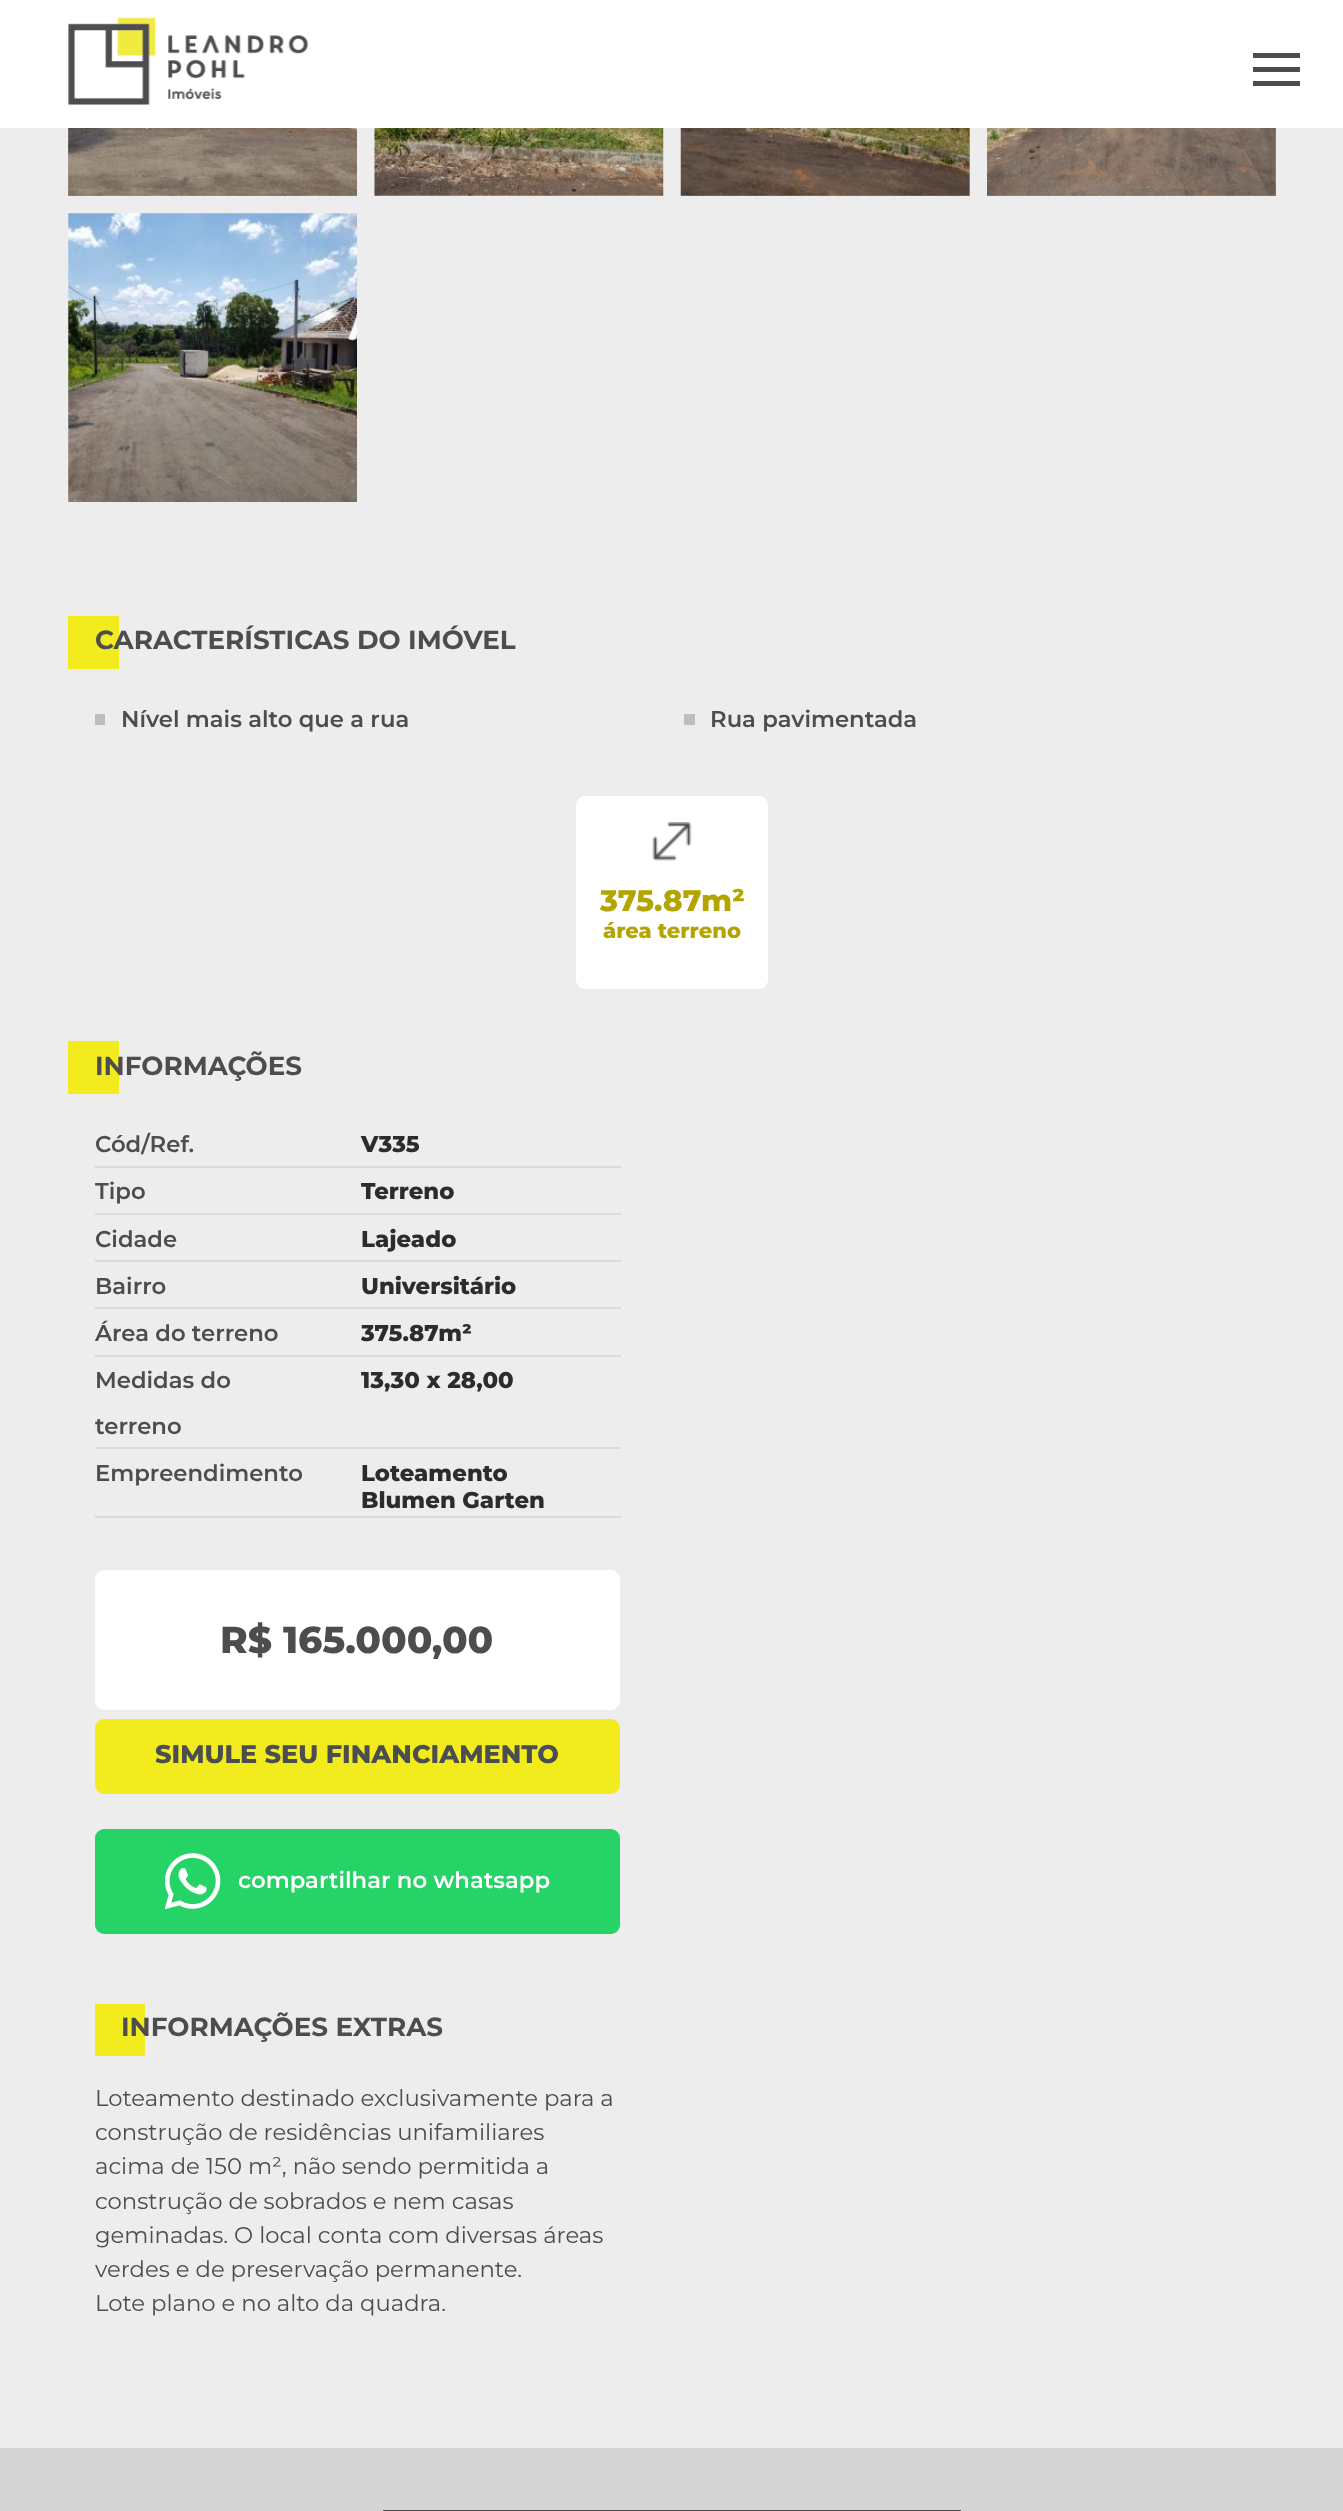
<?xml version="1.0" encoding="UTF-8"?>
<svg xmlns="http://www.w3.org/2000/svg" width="1343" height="2511">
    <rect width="100%" height="100%" fill="#EDEDED"/>
    <rect x="0" y="0" width="1343" height="128" fill="#FFFFFF"/>
    <image x="68" y="17" width="240" height="88" href="img_01.png"/>
    <rect x="1253" y="53" width="47" height="5" fill="#4C4D4F"/>
    <rect x="1253" y="67" width="47" height="5" fill="#4C4D4F"/>
    <rect x="1253" y="81" width="47" height="5" fill="#4C4D4F"/>
    <rect x="68" y="128" width="289" height="68" fill="#B2B2B2"/>
    <image x="68" y="128" width="289" height="68" href="img_02.png"/>
    <image x="374" y="128" width="290" height="68" href="img_03.png"/>
    <rect x="681" y="128" width="289" height="68" fill="#B2B2B2"/>
    <image x="680" y="128" width="290" height="68" href="img_04.png"/>
    <rect x="987" y="128" width="289" height="68" fill="#B2B2B2"/>
    <image x="987" y="128" width="289" height="68" href="img_05.png"/>
    <image x="68" y="213" width="289" height="289" href="img_06.png"/>
    <rect x="68" y="616" width="51" height="53" fill="#F2EC1F"/>
    <text x="95" y="649" font-family="Montserrat" font-size="26.2" font-weight="700" fill="#4C4D4F">CARACTERÍSTICAS DO IMÓVEL</text>
    <rect x="95" y="714" width="10" height="11" fill="#BEBEBE"/>
    <text x="121" y="727" font-family="Montserrat" font-size="22.75" font-weight="600" fill="#4C4D4F">Nível mais alto que a rua</text>
    <rect x="684" y="714" width="11" height="11" fill="#BEBEBE"/>
    <text x="710" y="727" font-family="Montserrat" font-size="22.75" font-weight="600" fill="#4C4D4F">Rua pavimentada</text>
    <rect x="576" y="796" width="192" height="193" rx="9" fill="#FFFFFF"/>
    <image x="652" y="822" width="40" height="39" href="img_07.png"/>
    <text x="600" y="911" font-family="Montserrat" font-size="29.75" font-weight="800" fill="#B3A400">375.87m²</text>
    <text x="603" y="938" font-family="Montserrat" font-size="21" font-weight="800" fill="#B3A400">área terreno</text>
    <rect x="68" y="1041" width="51" height="53" fill="#F2EC1F"/>
    <text x="95" y="1075" font-family="Montserrat" font-size="26.2" font-weight="700" fill="#4C4D4F">INFORMAÇÕES</text>
    <rect x="95" y="1166" width="526" height="2" fill="#DADADA"/>
    <text x="95" y="1152" font-family="Montserrat" font-size="22.75" font-weight="600" fill="#4C4D4F">Cód/Ref.</text>
    <text x="361" y="1152" font-family="Montserrat" font-size="22.75" font-weight="800" fill="#2B2C2D">V335</text>
    <rect x="95" y="1213" width="526" height="2" fill="#DADADA"/>
    <text x="95" y="1199" font-family="Montserrat" font-size="22.75" font-weight="600" fill="#4C4D4F">Tipo</text>
    <text x="361" y="1199" font-family="Montserrat" font-size="22.75" font-weight="800" fill="#2B2C2D">Terreno</text>
    <rect x="95" y="1260" width="526" height="2" fill="#DADADA"/>
    <text x="95" y="1247" font-family="Montserrat" font-size="22.75" font-weight="600" fill="#4C4D4F">Cidade</text>
    <text x="361" y="1247" font-family="Montserrat" font-size="22.75" font-weight="800" fill="#2B2C2D">Lajeado</text>
    <rect x="95" y="1307" width="526" height="2" fill="#DADADA"/>
    <text x="95" y="1294" font-family="Montserrat" font-size="22.75" font-weight="600" fill="#4C4D4F">Bairro</text>
    <text x="361" y="1294" font-family="Montserrat" font-size="22.75" font-weight="800" fill="#2B2C2D">Universitário</text>
    <rect x="95" y="1355" width="526" height="2" fill="#DADADA"/>
    <text x="95" y="1341" font-family="Montserrat" font-size="22.75" font-weight="600" fill="#4C4D4F">Área do terreno</text>
    <text x="361" y="1341" font-family="Montserrat" font-size="22.75" font-weight="800" fill="#2B2C2D">375.87m²</text>
    <rect x="95" y="1447" width="526" height="2" fill="#DADADA"/>
    <text x="95" y="1388" font-family="Montserrat" font-size="22.75" font-weight="600" fill="#4C4D4F">Medidas do</text>
    <text x="95" y="1434" font-family="Montserrat" font-size="22.75" font-weight="600" fill="#4C4D4F">terreno</text>
    <text x="361" y="1388" font-family="Montserrat" font-size="22.75" font-weight="800" fill="#2B2C2D">13,30 x 28,00</text>
    <rect x="95" y="1516" width="526" height="2" fill="#DADADA"/>
    <text x="95" y="1481" font-family="Montserrat" font-size="22.75" font-weight="600" fill="#4C4D4F">Empreendimento</text>
    <text font-family="Montserrat" font-size="22.75" font-weight="800" fill="#2B2C2D">
        <tspan x="361" y="1481">Loteamento</tspan>
        <tspan x="361" y="1508">Blumen Garten</tspan>
    </text>
    <rect x="95" y="1570" width="525" height="140" rx="9" fill="#FFFFFF"/>
    <text x="220" y="1653" font-family="Montserrat" font-size="37.5" font-weight="800" fill="#4C4D4F">R$ 165.000,00</text>
    <rect x="95" y="1719" width="525" height="75" rx="9" fill="#F2EC1F"/>
    <text x="155" y="1763" font-family="Montserrat" font-size="25.5" font-weight="800" fill="#4C4D4F">SIMULE SEU FINANCIAMENTO</text>
    <rect x="95" y="1829" width="525" height="105" rx="9" fill="#25D366"/>
    <image x="165" y="1853" width="56" height="56" href="img_08.png"/>
    <text x="238" y="1888" font-family="Montserrat" font-size="22.75" font-weight="600" fill="#FFFFFF">compartilhar no whatsapp</text>
    <rect x="95" y="2004" width="50" height="52" fill="#F2EC1F"/>
    <text x="121" y="2036" font-family="Montserrat" font-size="26.2" font-weight="700" fill="#4C4D4F">INFORMAÇÕES EXTRAS</text>
    <text font-family="Montserrat" font-size="22.75" fill="#4C4D4F">
        <tspan x="95" y="2106">Loteamento destinado exclusivamente para a</tspan>
        <tspan x="95" y="2140">construção de residências unifamiliares</tspan>
        <tspan x="95" y="2174">acima de 150 m², não sendo permitida a</tspan>
        <tspan x="95" y="2209">construção de sobrados e nem casas</tspan>
        <tspan x="95" y="2243">geminadas. O local conta com diversas áreas</tspan>
        <tspan x="95" y="2277">verdes e de preservação permanente.</tspan>
        <tspan x="95" y="2311">Lote plano e no alto da quadra.</tspan>
    </text>
    <rect x="0" y="2448" width="1343" height="63" fill="#D5D5D5"/>
    <rect x="383" y="2510" width="578" height="1" fill="#4C4D4F"/>
</svg>
